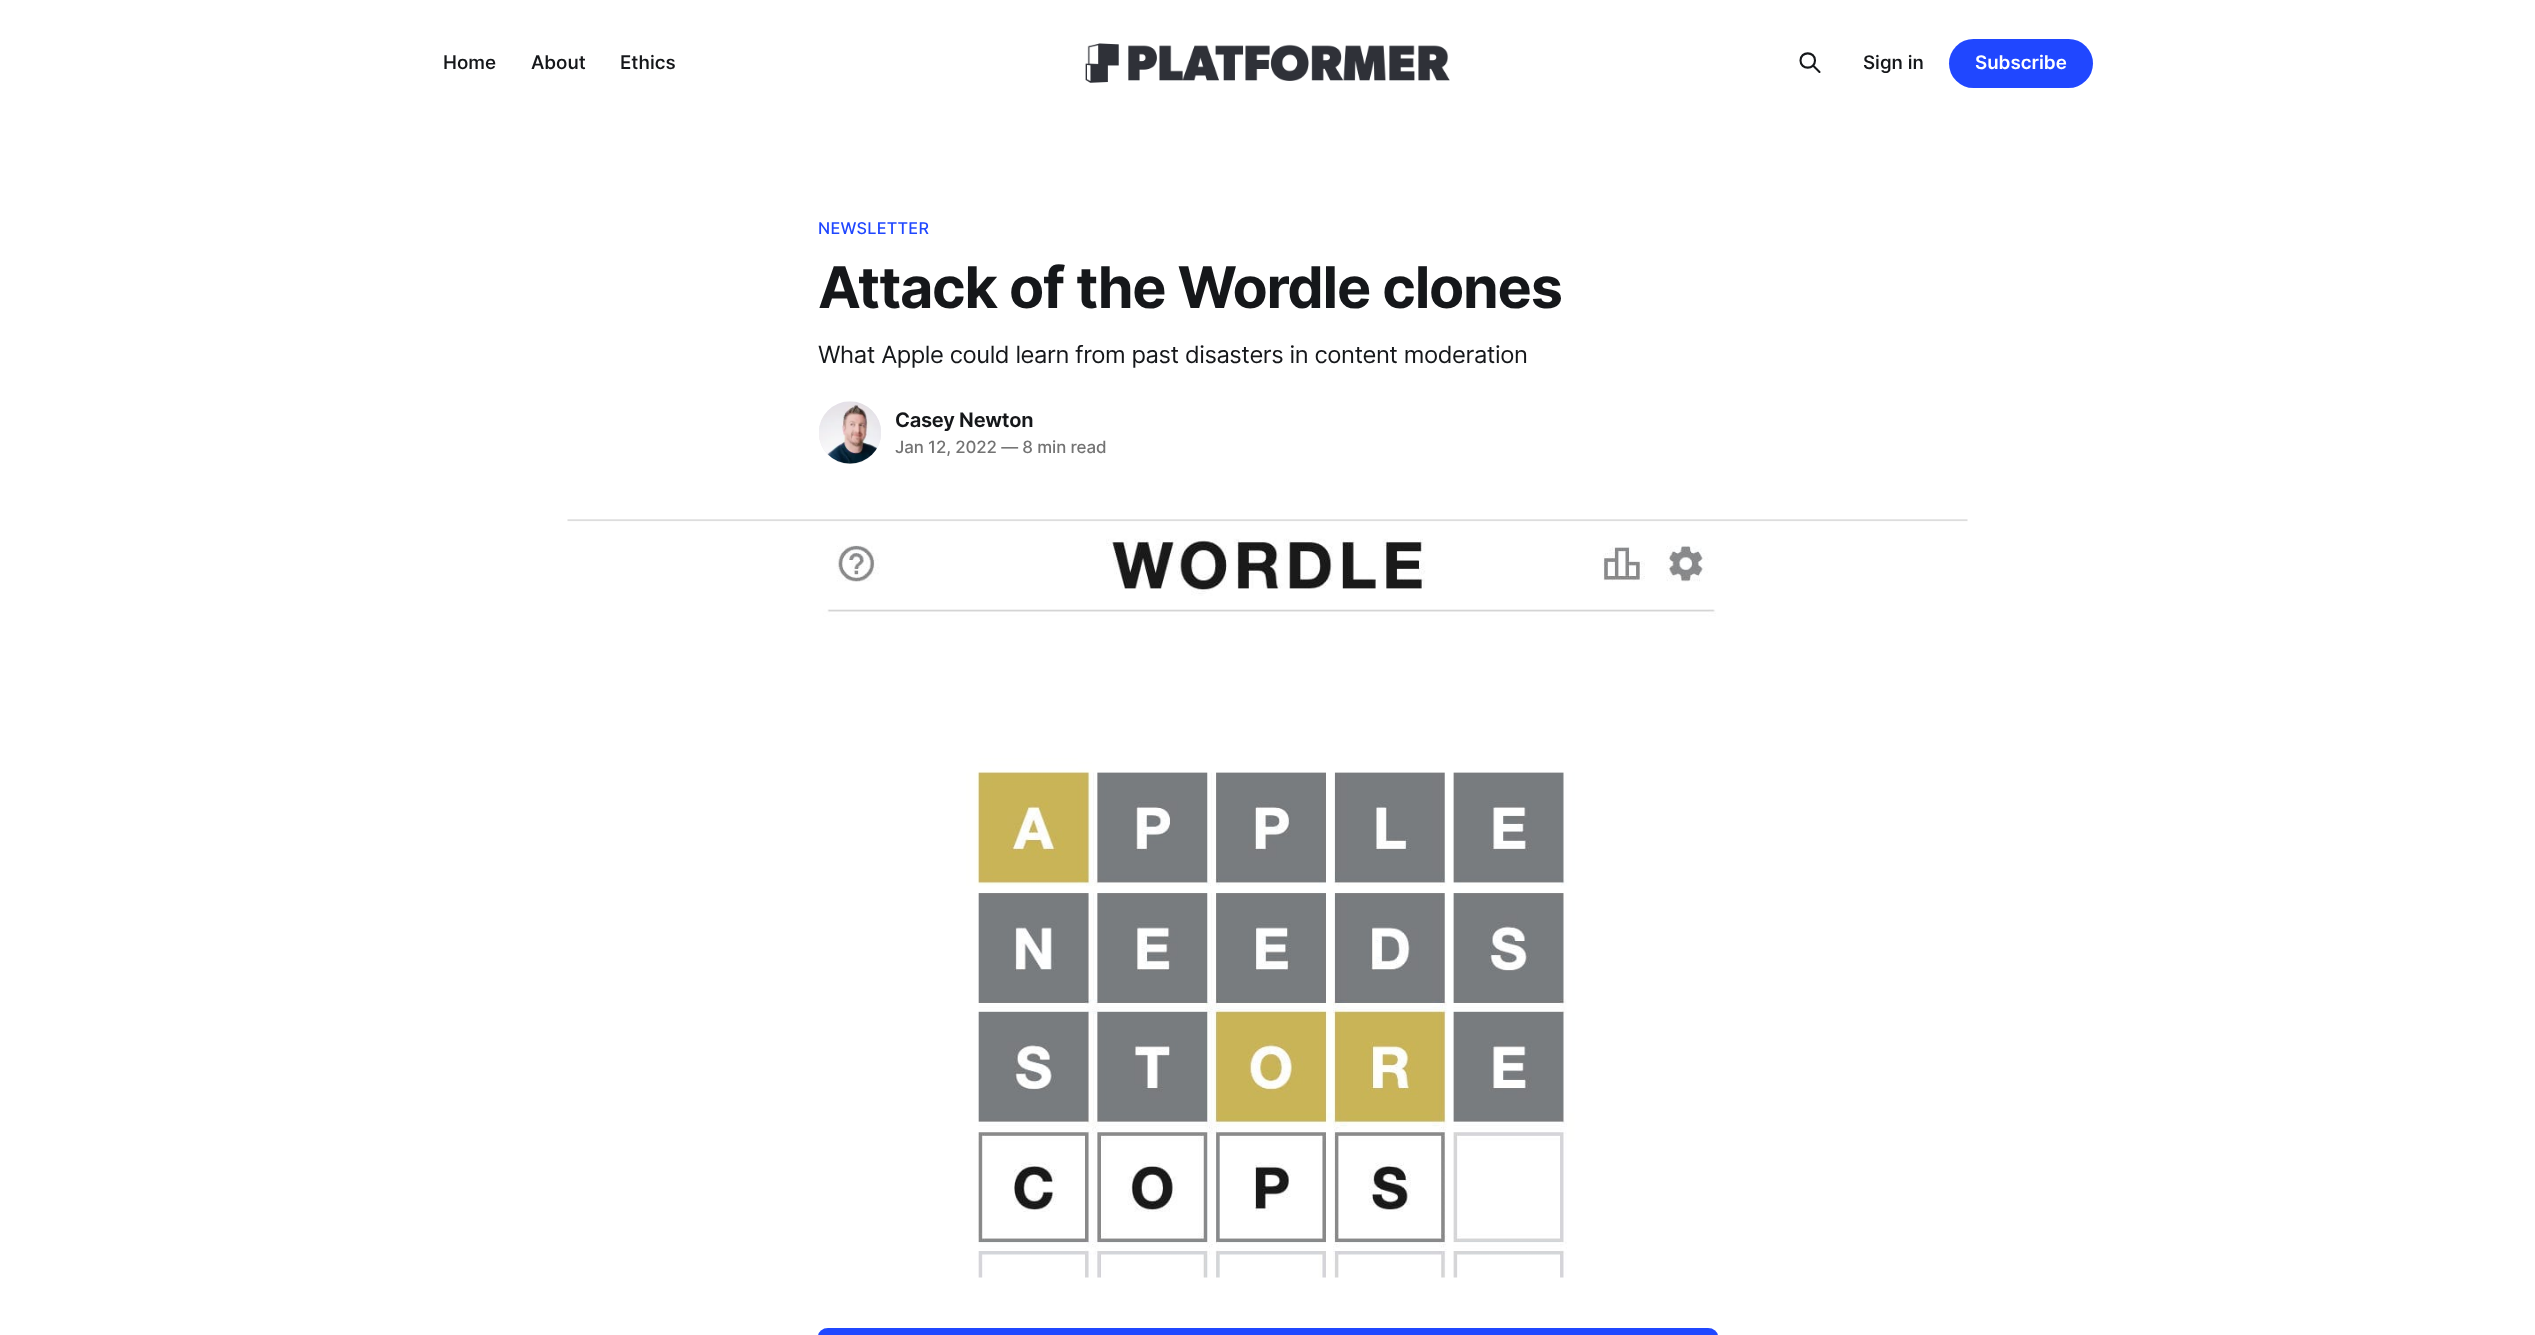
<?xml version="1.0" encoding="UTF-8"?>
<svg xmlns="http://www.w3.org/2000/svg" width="2535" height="1335">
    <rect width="100%" height="100%" fill="#FFFFFF"/>
    <text x="443" y="69" font-family="Inter" font-size="18.75" font-weight="500" fill="#15171A">Home</text>
    <text x="531" y="69" font-family="Inter" font-size="18.75" font-weight="500" fill="#15171A">About</text>
    <text x="620" y="69" font-family="Inter" font-size="18.75" font-weight="500" fill="#15171A">Ethics</text>
    <image x="1085" y="43" width="365" height="40" href="img_01.png"/>
    <path d="M 1819.5 72 L 1813 65.5 M 1815 60.5 C 1815 70 1800.5 70 1800.5 60.5 C 1800.5 51 1815 51 1815 60.5 Z" fill="none" stroke="#15171A" stroke-width="2.1" stroke-linecap="round" stroke-linejoin="round"/>
    <text x="1863" y="69" font-family="Inter" font-size="18.75" font-weight="500" fill="#15171A">Sign in</text>
    <rect x="1949" y="39" width="144" height="49" rx="24.5" fill="#2047FF"/>
    <text x="1975" y="69" font-family="Inter" font-size="18.75" font-weight="600" fill="#FFFFFF">Subscribe</text>
    <text x="818" y="234" font-family="'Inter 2'" font-size="16.25" font-weight="500" letter-spacing="0.25" fill="#2047FF">NEWSLETTER</text>
    <text x="818" y="308" font-family="Inter" font-size="57.5" font-weight="700" letter-spacing="-1.25" fill="#15171A">Attack of the Wordle clones</text>
    <text x="818" y="363" font-family="Inter" font-size="23.75" letter-spacing="-0.43" fill="#15171A">What Apple could learn from past disasters in content moderation</text>
    <circle cx="850" cy="433" r="33" fill="#E6E6E6" stroke="#FFFFFF" stroke-width="4"/>
    <image x="819" y="401" width="62" height="63" href="img_02.png"/>
    <text x="895" y="427" font-family="'Inter 2'" font-size="20" font-weight="600" letter-spacing="-0.25" fill="#15171A">Casey Newton</text>
    <text x="895" y="453" font-family="'Inter 2'" font-size="16.9" font-weight="500" letter-spacing="-0.1" fill="#737373">Jan 12, 2022 — 8 min read</text>
    <image x="567" y="519" width="1401" height="759" href="img_03.png"/>
    <rect x="818" y="1328" width="900" height="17" rx="10" fill="#2047FF"/>
</svg>
